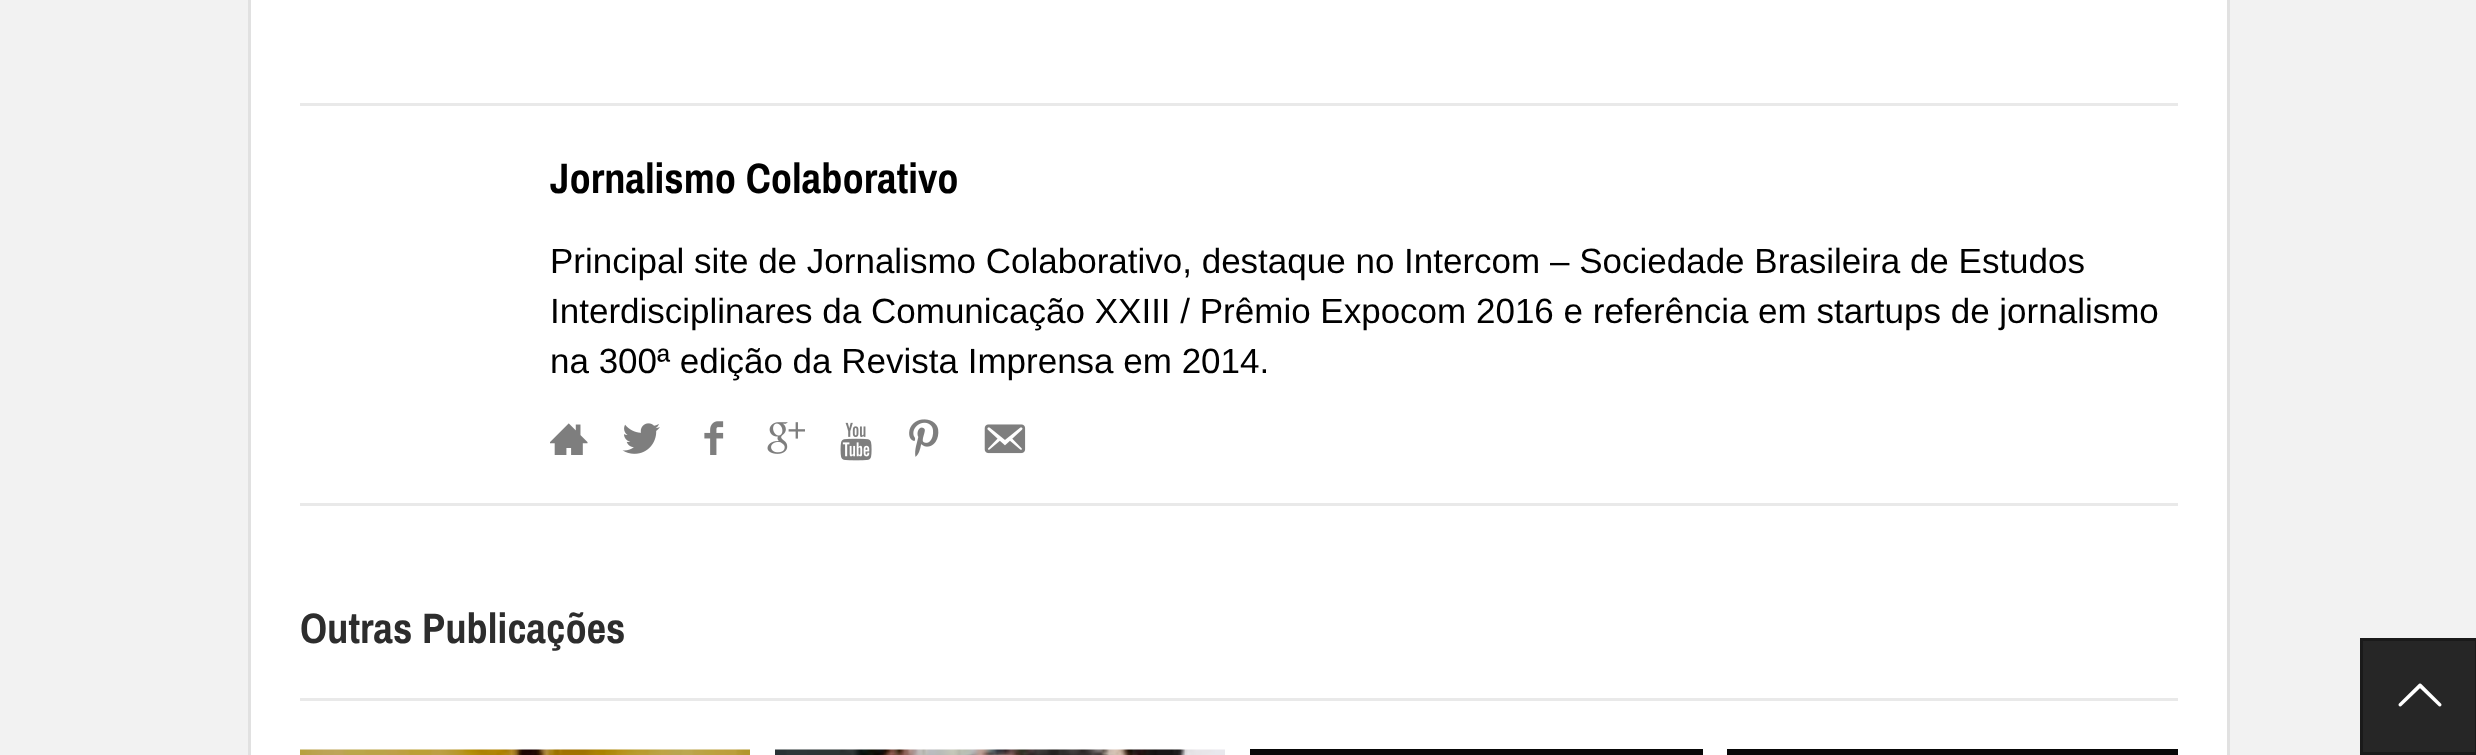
<?xml version="1.0" encoding="UTF-8"?>
<svg xmlns="http://www.w3.org/2000/svg" width="2476" height="755">
    <rect width="100%" height="100%" fill="#F2F2F2"/>
    <rect x="249.5" y="-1.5" width="1979" height="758" fill="#FFFFFF" stroke="#E1E1E1" stroke-width="3"/>
    <rect x="300" y="103" width="1878" height="3" fill="#E9E9E9"/>
    <rect x="300" y="503" width="1878" height="3" fill="#E9E9E9"/>
    <text x="550" y="193" font-family="Archivo Narrow" font-size="42.5" font-weight="700" fill="#000000">Jornalismo Colaborativo</text>
    <text font-family="Liberation Sans" font-size="35" fill="#000000">
        <tspan x="550" y="273">Principal site de Jornalismo Colaborativo, destaque no Intercom – Sociedade Brasileira de Estudos</tspan>
        <tspan x="550" y="323">Interdisciplinares da Comunicação XXIII / Prêmio Expocom 2016 e referência em startups de jornalismo</tspan>
        <tspan x="550" y="373">na 300ª edição da Revista Imprensa em 2014.</tspan>
    </text>
    <image x="550" y="423" width="38" height="32" href="img_01.png"/>
    <image x="622" y="423" width="38" height="31" href="img_02.png"/>
    <image x="704" y="421" width="20" height="34" href="img_03.png"/>
    <image x="767" y="422" width="38" height="32" href="img_04.png"/>
    <image x="840" y="422" width="32" height="39" href="img_05.png"/>
    <image x="909" y="419" width="30" height="38" href="img_06.png"/>
    <image x="984" y="424" width="42" height="30" href="img_07.png"/>
    <rect x="300" y="698" width="1878" height="3" fill="#E9E9E9"/>
    <text x="300" y="643" font-family="Archivo Narrow" font-size="42.5" font-weight="700" fill="#2D2D2D">Outras Publicações</text>
    <image x="300" y="749" width="450" height="6" href="img_08.png"/>
    <image x="775" y="749" width="450" height="6" href="img_09.png"/>
    <rect x="1250" y="749" width="453" height="6" fill="#080808"/>
    <rect x="1727" y="749" width="451" height="6" fill="#080808"/>
    <rect x="2361.5" y="639.5" width="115" height="114" fill="#262626" stroke="#1A1A1A" stroke-width="3"/>
    <image x="2398" y="683" width="44" height="24" href="img_10.png"/>
</svg>
